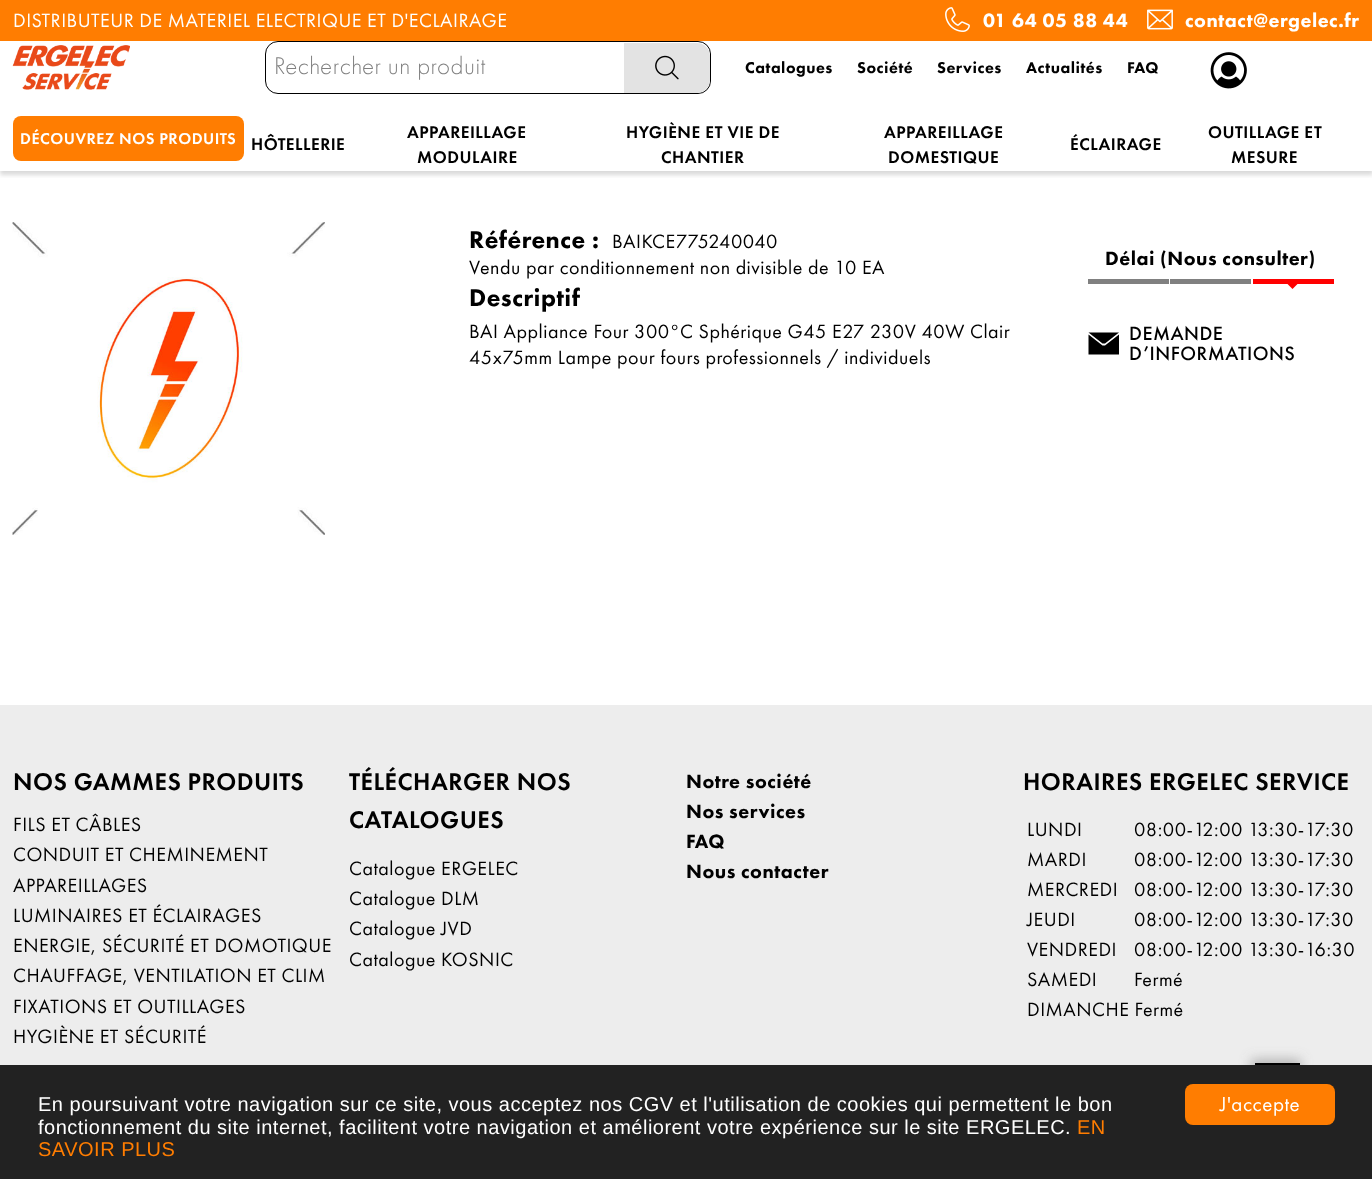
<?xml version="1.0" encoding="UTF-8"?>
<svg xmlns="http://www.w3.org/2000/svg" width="1372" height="1179">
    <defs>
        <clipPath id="clip1"><rect x="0" y="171" width="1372" height="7"/></clipPath>
        <filter id="blur1" x="-50%" y="-200%" width="200%" height="500%"><feGaussianBlur stdDeviation="2"/></filter>
        <filter id="blur2" x="-50%" y="-200%" width="200%" height="500%"><feGaussianBlur stdDeviation="6"/></filter>
    </defs>
    <rect width="100%" height="100%" fill="#FFFFFF"/>
    <rect x="0" y="0" width="1372" height="41" fill="#FF7D01"/>
    <text x="13" y="27" font-family="Futura PT" font-size="20" letter-spacing="0.5" fill="#FFFFFF">DISTRIBUTEUR DE MATERIEL ELECTRIQUE ET D'ECLAIRAGE</text>
    <image x="945" y="7" width="25" height="25" href="img_01.png"/>
    <text x="983" y="27" font-family="Futura PT" font-size="20" font-weight="900" letter-spacing="0.5" fill="#FFFFFF">01 64 05 88 44</text>
    <image x="1147" y="9" width="26" height="21" href="img_02.png"/>
    <text x="1185" y="27" font-family="Futura PT" font-size="20" font-weight="900" letter-spacing="0.5" fill="#FFFFFF">contact@ergelec.fr</text>
    <image x="12" y="45" width="118" height="45" href="img_03.png"/>
    <rect x="265.5" y="41.5" width="445" height="52" rx="12.5" fill="none" stroke="#000000"/>
    <text x="274" y="74" font-family="Futura PT" font-size="25" font-weight="300" letter-spacing="0.5" fill="#808080">Rechercher un produit</text>
    <path d="M 624 43 H 697 C 704 43 710 49 710 56 V 80 C 710 87 704 93 697 93 H 624 Z" fill="#E3E3E3"/>
    <image x="655" y="55" width="24" height="25" href="img_04.png"/>
    <text x="745" y="73" font-family="Futura PT" font-size="16.25" font-weight="900" letter-spacing="0.5" fill="#000000">Catalogues</text>
    <text x="857" y="73" font-family="Futura PT" font-size="16.25" font-weight="900" letter-spacing="0.5" fill="#000000">Société</text>
    <text x="937" y="73" font-family="Futura PT" font-size="16.25" font-weight="900" letter-spacing="0.5" fill="#000000">Services</text>
    <text x="1026" y="73" font-family="Futura PT" font-size="16.25" font-weight="900" letter-spacing="0.5" fill="#000000">Actualités</text>
    <text x="1127" y="73" font-family="Futura PT" font-size="16.25" font-weight="900" letter-spacing="0.5" fill="#000000">FAQ</text>
    <image x="1210" y="52" width="37" height="37" href="img_05.png"/>
    <g clip-path="url(#clip1)">
        <rect x="0" y="120" width="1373" height="55" fill="#B6B6B6" fill-opacity="0.5" filter="url(#blur1)"/>
    </g>
    <rect x="13" y="116" width="231" height="45" rx="8" fill="#FF7D01"/>
    <text x="20" y="144" font-family="Futura PT" font-size="16.25" font-weight="500" letter-spacing="0.5" fill="#FFFFFF">DÉCOUVREZ NOS PRODUITS</text>
    <text x="251" y="150" font-family="Futura PT" font-size="17.5" font-weight="500" letter-spacing="0.5" fill="#000000">HÔTELLERIE</text>
    <text x="407" y="138" font-family="Futura PT" font-size="17.5" font-weight="500" letter-spacing="0.5" fill="#000000">APPAREILLAGE</text>
    <text x="417" y="163" font-family="Futura PT" font-size="17.5" font-weight="500" letter-spacing="0.5" fill="#000000">MODULAIRE</text>
    <text x="626" y="138" font-family="Futura PT" font-size="17.5" font-weight="500" letter-spacing="0.5" fill="#000000">HYGIÈNE ET VIE DE</text>
    <text x="661" y="163" font-family="Futura PT" font-size="17.5" font-weight="500" letter-spacing="0.5" fill="#000000">CHANTIER</text>
    <text x="884" y="138" font-family="Futura PT" font-size="17.5" font-weight="500" letter-spacing="0.5" fill="#000000">APPAREILLAGE</text>
    <text x="888" y="163" font-family="Futura PT" font-size="17.5" font-weight="500" letter-spacing="0.5" fill="#000000">DOMESTIQUE</text>
    <text x="1070" y="150" font-family="Futura PT" font-size="17.5" font-weight="500" letter-spacing="0.5" fill="#000000">ÉCLAIRAGE</text>
    <text x="1208" y="138" font-family="Futura PT" font-size="17.5" font-weight="500" letter-spacing="0.5" fill="#000000">OUTILLAGE ET</text>
    <text x="1231" y="163" font-family="Futura PT" font-size="17.5" font-weight="500" letter-spacing="0.5" fill="#000000">MESURE</text>
    <image x="12" y="222" width="313" height="313" href="img_06.png"/>
    <text x="469" y="248" font-family="Futura PT" font-size="25" font-weight="900" letter-spacing="0.5" fill="#000000">Référence :</text>
    <text x="612" y="248" font-family="Futura PT" font-size="20" letter-spacing="0.5" fill="#000000">BAIKCE775240040</text>
    <text x="469" y="274" font-family="Futura PT" font-size="20" letter-spacing="0.5" fill="#000000">Vendu par conditionnement non divisible de 10 EA</text>
    <text x="469" y="306" font-family="Futura PT" font-size="25" font-weight="900" letter-spacing="0.5" fill="#000000">Descriptif</text>
    <text font-family="Futura PT" font-size="20" letter-spacing="0.5" fill="#000000">
        <tspan x="469" y="338">BAI Appliance Four 300°C Sphérique G45 E27 230V 40W Clair</tspan>
        <tspan x="469" y="364">45x75mm Lampe pour fours professionnels / individuels</tspan>
    </text>
    <text x="1105" y="265" font-family="Futura PT" font-size="20" font-weight="900" letter-spacing="0.5" fill="#000000">Délai (Nous consulter)</text>
    <rect x="1088" y="279" width="81" height="5" fill="#808080"/>
    <rect x="1170" y="279" width="81" height="5" fill="#808080"/>
    <rect x="1253" y="279" width="81" height="5" fill="#FF0000"/>
    <path d="M 1287.5 284 H 1297.5 L 1292.5 289 Z" fill="#FF0000"/>
    <path d="M 1102.5 343.5 L 1088.5 332.5 H 1119 L 1105 343.5 Z M 1088.5 354.5 V 334.5 L 1102.5 345.5 H 1105 L 1119 334.5 V 354.5 Z" fill="#000000"/>
    <text font-family="'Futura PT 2'" font-size="20" font-weight="500" letter-spacing="0.5" fill="#000000">
        <tspan x="1129" y="340">DEMANDE</tspan>
        <tspan x="1129" y="360">D’INFORMATIONS</tspan>
    </text>
    <rect x="0" y="705" width="1372" height="360" fill="#EDEDED"/>
    <text x="13" y="790" font-family="Futura PT" font-size="25" font-weight="500" letter-spacing="0.5" fill="#000000">NOS GAMMES PRODUITS</text>
    <text font-family="Futura PT" font-size="20" letter-spacing="0.5" fill="#000000">
        <tspan x="13" y="831">FILS ET CÂBLES</tspan>
        <tspan x="13" y="861">CONDUIT ET CHEMINEMENT</tspan>
        <tspan x="13" y="892">APPAREILLAGES</tspan>
        <tspan x="13" y="922">LUMINAIRES ET ÉCLAIRAGES</tspan>
        <tspan x="13" y="952">ENERGIE, SÉCURITÉ ET DOMOTIQUE</tspan>
        <tspan x="13" y="982">CHAUFFAGE, VENTILATION ET CLIM</tspan>
        <tspan x="13" y="1013">FIXATIONS ET OUTILLAGES</tspan>
        <tspan x="13" y="1043">HYGIÈNE ET SÉCURITÉ</tspan>
    </text>
    <text font-family="Futura PT" font-size="25" font-weight="500" letter-spacing="0.5" fill="#000000">
        <tspan x="349" y="790">TÉLÉCHARGER NOS</tspan>
        <tspan x="349" y="828">CATALOGUES</tspan>
    </text>
    <text font-family="Futura PT" font-size="20" letter-spacing="0.5" fill="#000000">
        <tspan x="349" y="875">Catalogue ERGELEC</tspan>
        <tspan x="349" y="905">Catalogue DLM</tspan>
        <tspan x="349" y="935">Catalogue JVD</tspan>
        <tspan x="349" y="966">Catalogue KOSNIC</tspan>
    </text>
    <text font-family="Futura PT" font-size="20" font-weight="900" letter-spacing="0.5" fill="#000000">
        <tspan x="686" y="788">Notre société</tspan>
        <tspan x="686" y="818">Nos services</tspan>
        <tspan x="686" y="848">FAQ</tspan>
        <tspan x="686" y="878">Nous contacter</tspan>
    </text>
    <text x="1023" y="790" font-family="Futura PT" font-size="25" font-weight="500" letter-spacing="0.5" fill="#000000">HORAIRES ERGELEC SERVICE</text>
    <text x="1027" y="836" font-family="Futura PT" font-size="20" letter-spacing="0.5" fill="#000000">LUNDI</text>
    <text x="1134" y="836" font-family="Futura PT" font-size="20" letter-spacing="0.5" fill="#000000">08:00-12:00 13:30-17:30</text>
    <text x="1027" y="866" font-family="Futura PT" font-size="20" letter-spacing="0.5" fill="#000000">MARDI</text>
    <text x="1134" y="866" font-family="Futura PT" font-size="20" letter-spacing="0.5" fill="#000000">08:00-12:00 13:30-17:30</text>
    <text x="1027" y="896" font-family="Futura PT" font-size="20" letter-spacing="0.5" fill="#000000">MERCREDI</text>
    <text x="1134" y="896" font-family="Futura PT" font-size="20" letter-spacing="0.5" fill="#000000">08:00-12:00 13:30-17:30</text>
    <text x="1027" y="926" font-family="Futura PT" font-size="20" letter-spacing="0.5" fill="#000000">JEUDI</text>
    <text x="1134" y="926" font-family="Futura PT" font-size="20" letter-spacing="0.5" fill="#000000">08:00-12:00 13:30-17:30</text>
    <text x="1027" y="956" font-family="Futura PT" font-size="20" letter-spacing="0.5" fill="#000000">VENDREDI</text>
    <text x="1134" y="956" font-family="Futura PT" font-size="20" letter-spacing="0.5" fill="#000000">08:00-12:00 13:30-16:30</text>
    <text x="1027" y="986" font-family="Futura PT" font-size="20" letter-spacing="0.5" fill="#000000">SAMEDI</text>
    <text x="1134" y="986" font-family="Futura PT" font-size="20" letter-spacing="0.5" fill="#000000">Fermé</text>
    <text x="1027" y="1016" font-family="Futura PT" font-size="20" letter-spacing="0.5" fill="#000000">DIMANCHE Fermé</text>
    <rect x="1251" y="1059" width="50" height="50" fill="#7F7F7F" fill-opacity="0.5" filter="url(#blur2)"/>
    <path d="M 1275 1082 V 1099 H 1280 V 1082 H 1287 L 1278 1071 L 1268 1082 Z M 1255 1063 H 1300 V 1108 H 1255 Z" fill="#000000"/>
    <rect x="0" y="1065" width="1372" height="114" fill="#222222"/>
    <text font-family="Liberation Sans" font-size="20" letter-spacing="0.5" fill="#FFFFFF">
        <tspan x="38" y="1111">En poursuivant votre navigation sur ce site, vous acceptez nos CGV et l'utilisation de cookies qui permettent le bon</tspan>
        <tspan x="38" y="1134">fonctionnement du site internet, facilitent votre navigation et améliorent votre expérience sur le site ERGELEC.</tspan>
    </text>
    <text x="1077" y="1134" font-family="Liberation Sans" font-size="20" letter-spacing="0.5" fill="#FF7D01">EN</text>
    <text x="38" y="1156" font-family="Liberation Sans" font-size="20" letter-spacing="0.5" fill="#FF7D01">SAVOIR PLUS</text>
    <rect x="1185" y="1084" width="150" height="41" rx="8" fill="#FF7D01"/>
    <text x="1220" y="1111" font-family="Futura PT" font-size="21" letter-spacing="0.5" fill="#FFFFFF">J'accepte</text>
</svg>
